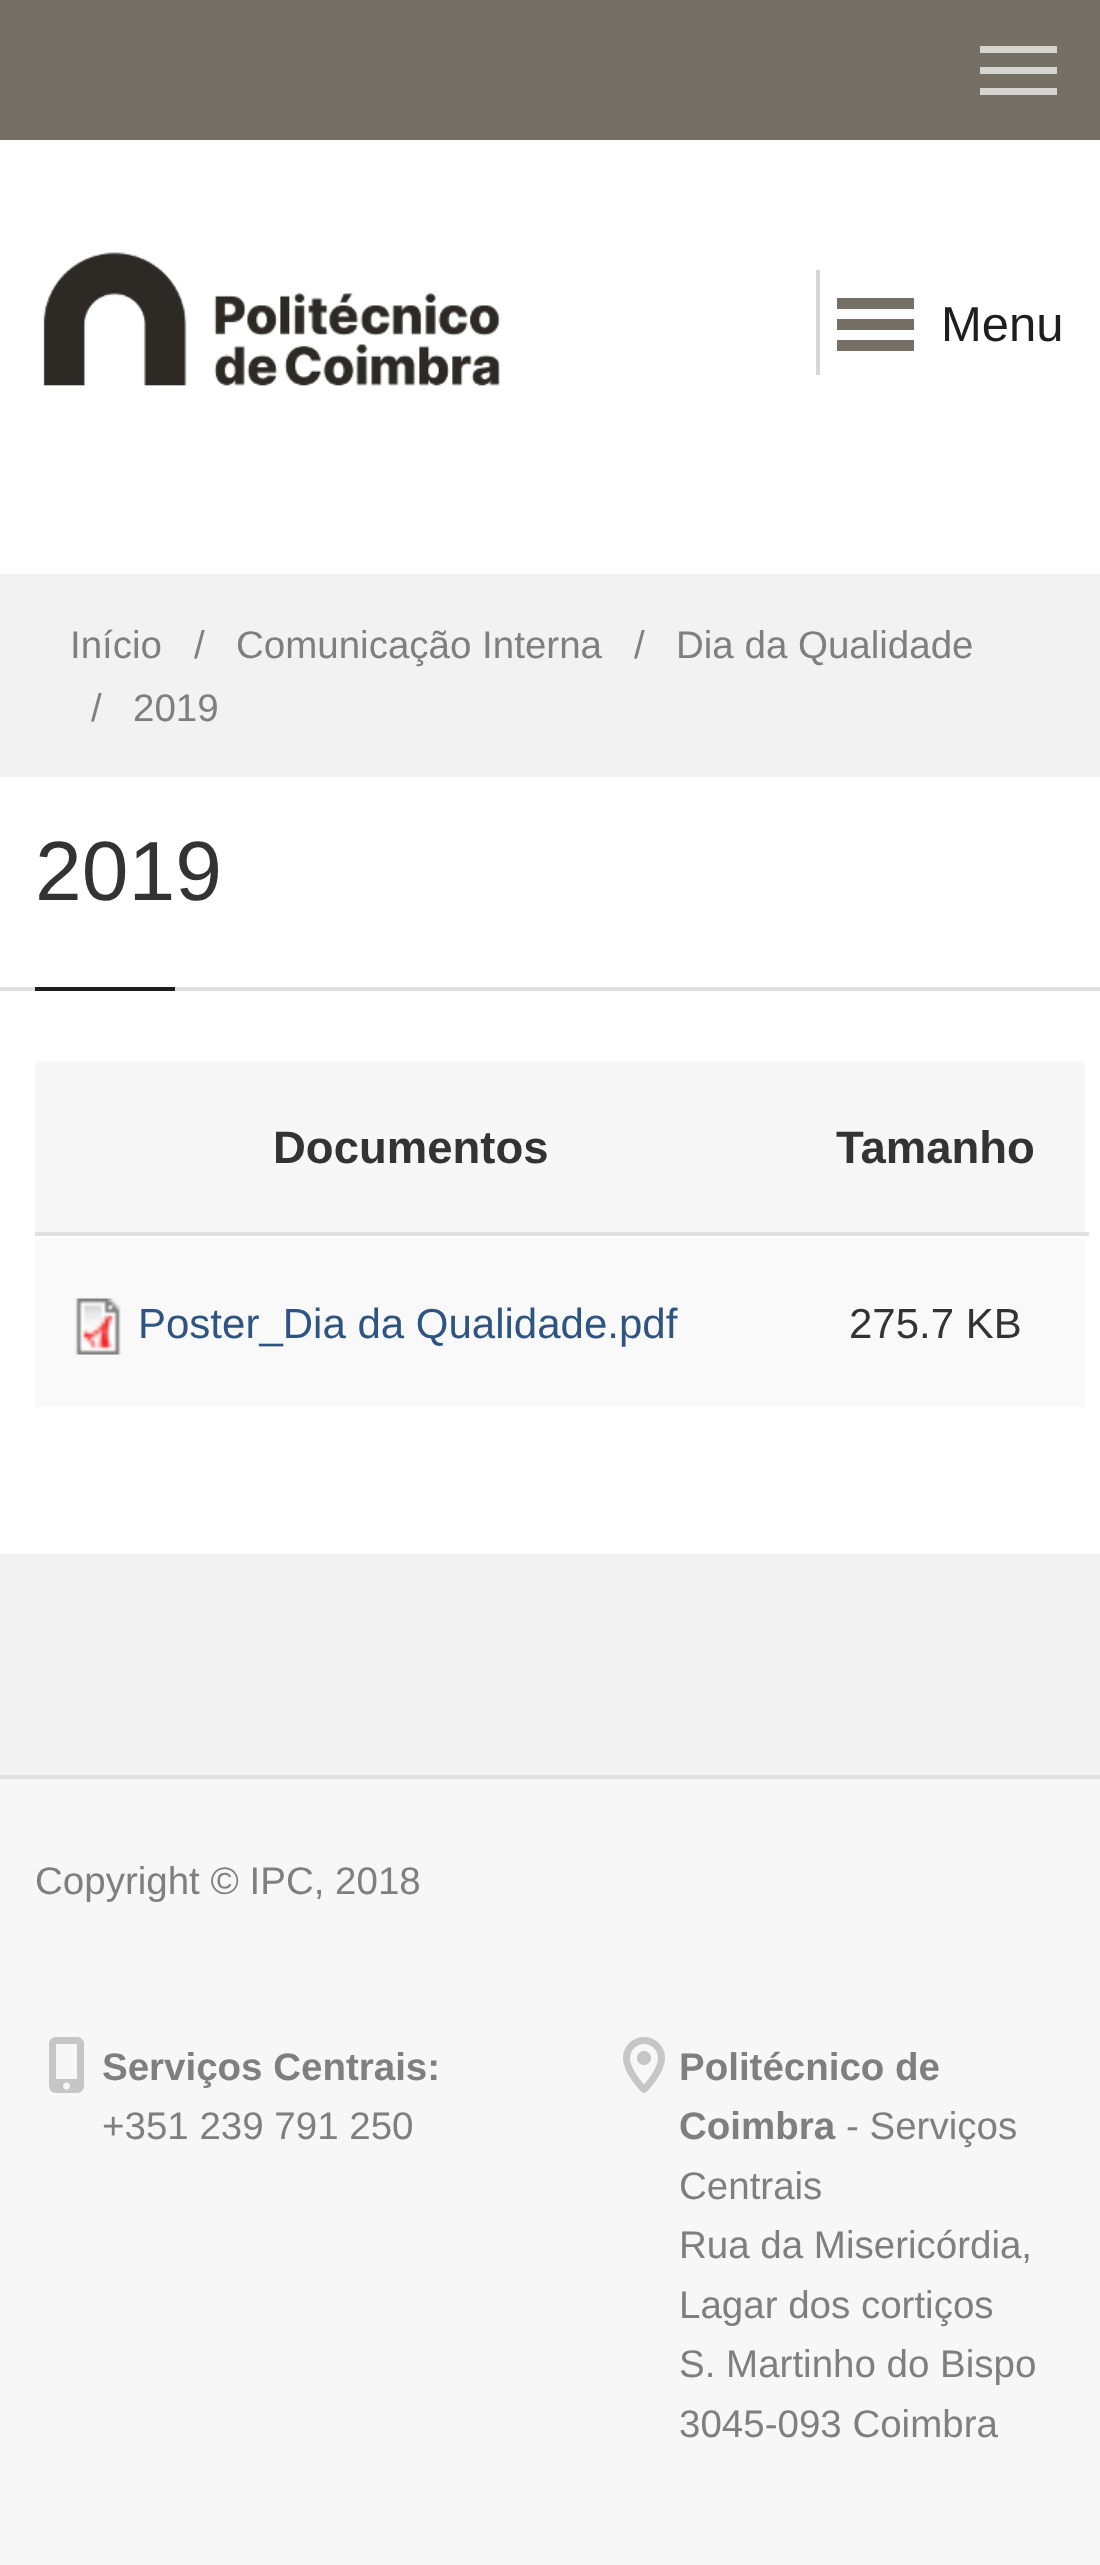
<?xml version="1.0" encoding="UTF-8"?>
<svg xmlns="http://www.w3.org/2000/svg" width="1100" height="2565">
    <rect width="100%" height="100%" fill="#FFFFFF"/>
    <rect x="0" y="0" width="1100" height="140" fill="#756F66"/>
    <rect x="980" y="46" width="77" height="7" fill="#D6D4D1"/>
    <rect x="980" y="67" width="77" height="7" fill="#D6D4D1"/>
    <rect x="980" y="88" width="77" height="7" fill="#D6D4D1"/>
    <image x="43" y="252" width="458" height="134" href="img_01.png"/>
    <rect x="816" y="270" width="4" height="105" fill="#D6D6D6"/>
    <rect x="837" y="298" width="77" height="11" fill="#756F66"/>
    <rect x="837" y="319" width="77" height="11" fill="#756F66"/>
    <text x="941" y="341" font-family="Liberation Sans" font-size="49" fill="#1E1E1E">Menu</text>
    <rect x="837" y="340" width="77" height="11" fill="#756F66"/>
    <rect x="0" y="574" width="1100" height="203" fill="#F2F2F2"/>
    <text x="70" y="658" font-family="Liberation Sans" font-size="38.5" fill="#7F7F7F">Início</text>
    <text x="194" y="658" font-family="Liberation Sans" font-size="38.5" fill="#7F7F7F">/</text>
    <text x="236" y="658" font-family="Liberation Sans" font-size="38.5" fill="#7F7F7F">Comunicação Interna</text>
    <text x="634" y="658" font-family="Liberation Sans" font-size="38.5" fill="#7F7F7F">/</text>
    <text x="676" y="658" font-family="Liberation Sans" font-size="38.5" fill="#7F7F7F">Dia da Qualidade</text>
    <text x="91" y="721" font-family="Liberation Sans" font-size="38.5" fill="#7F7F7F">/</text>
    <text x="133" y="721" font-family="Liberation Sans" font-size="38.5" fill="#7F7F7F">2019</text>
    <rect x="0" y="987" width="1100" height="4" fill="#E1E1E1"/>
    <text x="35" y="900" font-family="Liberation Sans" font-size="84" fill="#333333">2019</text>
    <rect x="35" y="987" width="140" height="4" fill="#1E1E1E"/>
    <rect x="35" y="1061" width="1050" height="171" fill="#F7F7F7"/>
    <text x="273" y="1163" font-family="Liberation Sans" font-size="45.5" font-weight="700" fill="#333333">Documentos</text>
    <text x="836" y="1163" font-family="Liberation Sans" font-size="45.5" font-weight="700" fill="#333333">Tamanho</text>
    <rect x="35" y="1239" width="1050" height="168" fill="#F9F9F9"/>
    <image x="75" y="1298" width="46" height="57" href="img_02.png"/>
    <text x="138" y="1338" font-family="Liberation Sans" font-size="42" fill="#2E5481">Poster_Dia da Qualidade.pdf</text>
    <rect x="35" y="1232" width="1054" height="4" fill="#E1E1E1"/>
    <text x="849" y="1338" font-family="Liberation Sans" font-size="42" fill="#333333">275.7 KB</text>
    <rect x="0" y="1554" width="1100" height="221" fill="#F2F2F2"/>
    <rect x="0" y="1779" width="1100" height="786" fill="#F7F7F7"/>
    <rect x="0" y="1775" width="1100" height="4" fill="#E1E1E1"/>
    <text x="35" y="1894" font-family="Liberation Sans" font-size="38.5" fill="#7F7F7F">Copyright © IPC, 2018</text>
    <image x="49" y="2037" width="35" height="56" href="img_03.png"/>
    <text x="102" y="2080" font-family="Liberation Sans" font-size="38.5" font-weight="700" fill="#7F7F7F">Serviços Centrais:</text>
    <text x="102" y="2139" font-family="Liberation Sans" font-size="38.5" fill="#7F7F7F">+351 239 791 250</text>
    <image x="623" y="2037" width="42" height="56" href="img_04.png"/>
    <text font-family="Liberation Sans" font-size="38.5" font-weight="700" fill="#7F7F7F">
        <tspan x="679" y="2080">Politécnico de</tspan>
        <tspan x="679" y="2139">Coimbra</tspan>
    </text>
    <text x="846" y="2139" font-family="Liberation Sans" font-size="38.5" fill="#7F7F7F">- Serviços</text>
    <text font-family="Liberation Sans" font-size="38.5" fill="#7F7F7F">
        <tspan x="679" y="2199">Centrais</tspan>
        <tspan x="679" y="2258">Rua da Misericórdia,</tspan>
        <tspan x="679" y="2318">Lagar dos cortiços</tspan>
        <tspan x="679" y="2377">S. Martinho do Bispo</tspan>
        <tspan x="679" y="2437">3045-093 Coimbra</tspan>
    </text>
</svg>
